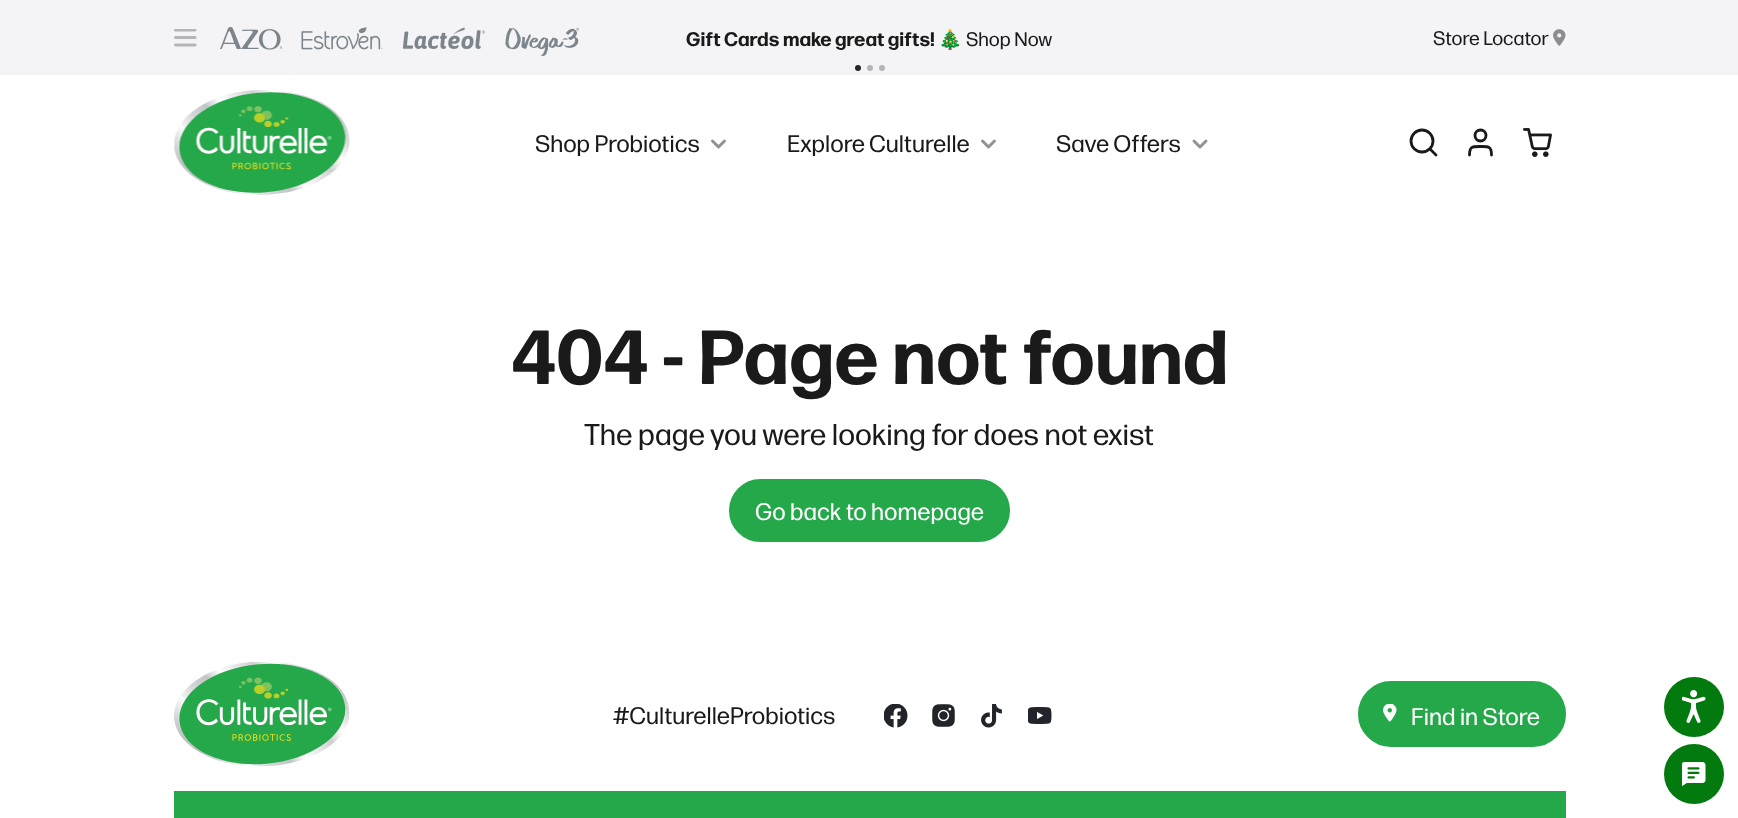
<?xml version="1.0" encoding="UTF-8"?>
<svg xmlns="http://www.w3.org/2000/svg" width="1738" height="818">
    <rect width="100%" height="100%" fill="#FFFFFF"/>
    <rect x="0" y="0" width="1738" height="75" fill="#F4F3F5"/>
    <text x="686" y="46" font-family="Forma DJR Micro" font-size="19.5" font-weight="700" fill="#1A1A1A">Gift Cards make great gifts!</text>
    <text x="938" y="46" font-family="Noto Color Emoji" font-size="19.5" fill="#1A1A1A">🎄</text>
    <text x="966" y="46" font-family="Forma DJR Micro" font-size="19.5" fill="#1A1A1A">Shop Now</text>
    <circle cx="858" cy="68" r="3" fill="#212529"/>
    <circle cx="870" cy="68" r="3" fill="#B5B5B8"/>
    <circle cx="882" cy="68" r="3" fill="#B5B5B8"/>
    <image x="174" y="29" width="23" height="18" href="img_01.png"/>
    <image x="220" y="27" width="62" height="23" href="img_02.png"/>
    <image x="301" y="27" width="82" height="23" href="img_03.png"/>
    <image x="402" y="27" width="84" height="22" href="img_04.png"/>
    <image x="505" y="27" width="75" height="29" href="img_05.png"/>
    <text x="1433" y="45" font-family="Forma DJR Micro" font-size="19.5" fill="#1A1A1A">Store Locator</text>
    <image x="1553" y="29" width="13" height="17" href="img_06.png"/>
    <image x="174" y="90" width="176" height="105" href="img_07.png"/>
    <text x="535" y="152" font-family="Forma DJR Micro" font-size="24" fill="#1A1A1A">Shop Probiotics</text>
    <path d="M 724.5 141 L 718.5 147 L 712.5 141" fill="none" stroke="#909294" stroke-width="3" stroke-linecap="round" stroke-linejoin="round"/>
    <text x="787" y="152" font-family="Forma DJR Micro" font-size="24" fill="#1A1A1A">Explore Culturelle</text>
    <path d="M 994.5 141 L 988.5 147 L 982.5 141" fill="none" stroke="#909294" stroke-width="3" stroke-linecap="round" stroke-linejoin="round"/>
    <text x="1056" y="152" font-family="Forma DJR Micro" font-size="24" fill="#1A1A1A">Save Offers</text>
    <path d="M 1206 141 L 1200 147 L 1194 141" fill="none" stroke="#909294" stroke-width="3" stroke-linecap="round" stroke-linejoin="round"/>
    <circle cx="1422" cy="141" r="11" fill="none" stroke="#1A1A1A" stroke-width="2.8"/>
    <path d="M 1436 155 L 1430 149" fill="none" stroke="#1A1A1A" stroke-width="2.8" stroke-linecap="round" stroke-linejoin="round"/>
    <path d="M 1491.5 155 C 1491.5 146 1488.5 146.5 1480.5 146.5 C 1472.5 146.5 1469.5 146 1469.5 155" fill="none" stroke="#1A1A1A" stroke-width="2.8" stroke-linecap="round" stroke-linejoin="round"/>
    <circle cx="1480.5" cy="135.5" r="5.5" fill="none" stroke="#1A1A1A" stroke-width="2.8"/>
    <image x="1523" y="128" width="29" height="29" href="img_08.png"/>
    <text x="511" y="384" font-family="Forma DJR Micro" font-size="76.5" font-weight="700" fill="#1A1A1A">404 - Page not found</text>
    <text x="584" y="445" font-family="Forma DJR Micro" font-size="30" fill="#1A1A1A">The page you were looking for does not exist</text>
    <rect x="730" y="480" width="279" height="61" rx="30.5" fill="#25A84A" stroke="#25A84A" stroke-width="2"/>
    <text x="755" y="520" font-family="Forma DJR Micro" font-size="24" fill="#FFFFFF">Go back to homepage</text>
    <image x="174" y="662" width="176" height="105" href="img_09.png"/>
    <text x="613" y="724" font-family="Forma DJR Micro" font-size="24" fill="#1A1A1A">#CulturelleProbiotics</text>
    <image x="884" y="704" width="24" height="24" href="img_10.png"/>
    <image x="932" y="704" width="23" height="23" href="img_11.png"/>
    <image x="981" y="704" width="21" height="24" href="img_12.png"/>
    <image x="1028" y="707" width="24" height="17" href="img_13.png"/>
    <rect x="1359" y="682" width="206" height="64" rx="32" fill="#25A84A" stroke="#25A84A" stroke-width="2"/>
    <image x="1383" y="704" width="14" height="18" href="img_14.png"/>
    <text x="1411" y="725" font-family="Forma DJR Micro" font-size="24" fill="#FFFFFF">Find in Store</text>
    <circle cx="1694" cy="707" r="30" fill="#037A0D"/>
    <image x="1682" y="690" width="24" height="33" href="img_15.png"/>
    <rect x="174" y="791" width="1392" height="27" fill="#25A84A"/>
    <circle cx="1694" cy="774" r="30" fill="#037A0D"/>
    <image x="1682" y="762" width="24" height="24" href="img_16.png"/>
</svg>
